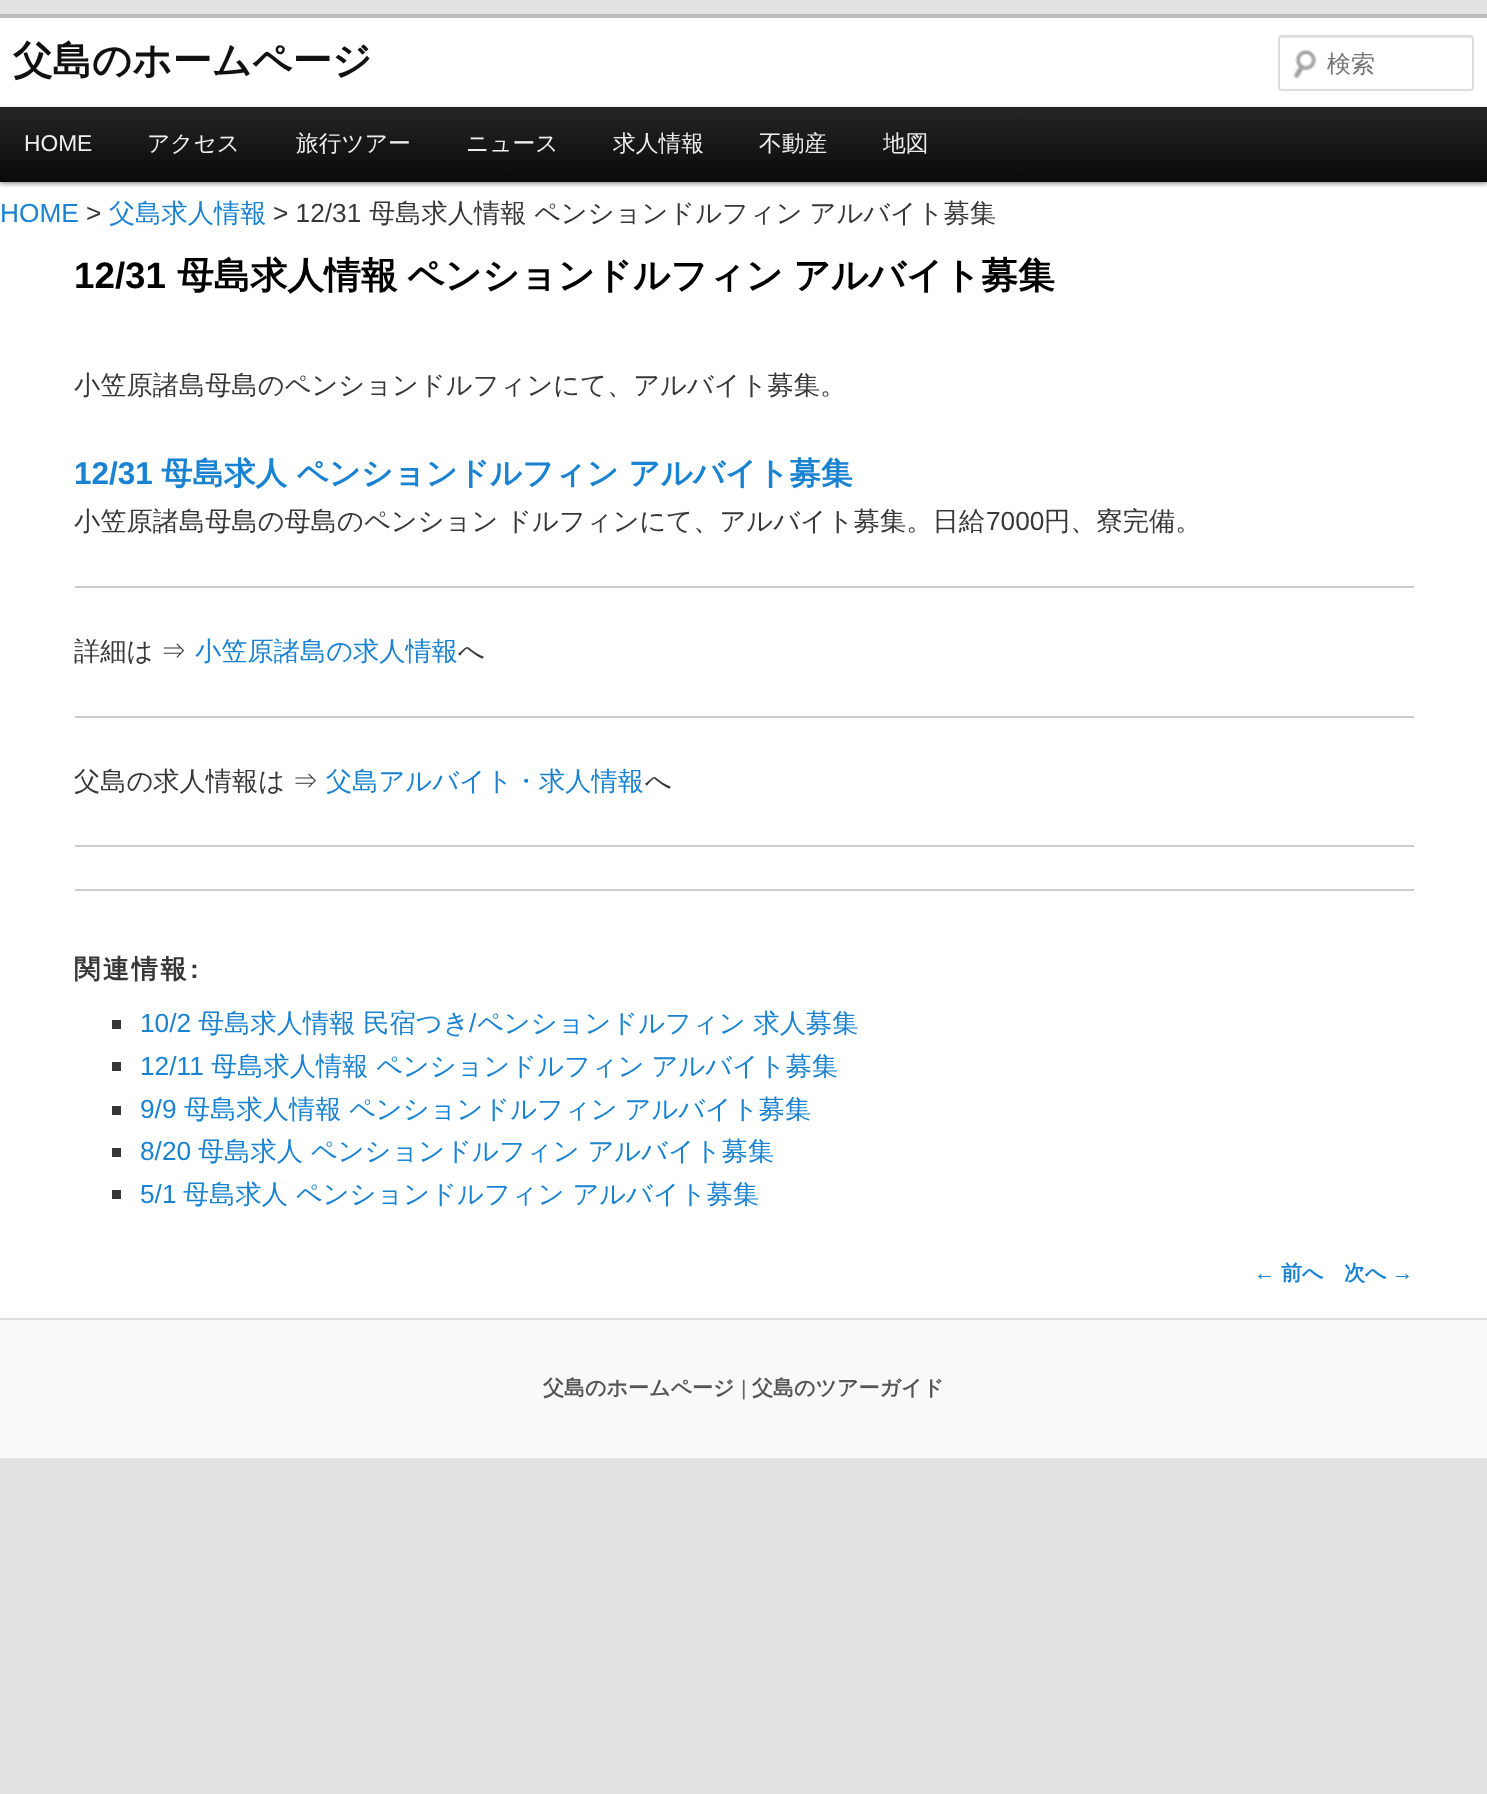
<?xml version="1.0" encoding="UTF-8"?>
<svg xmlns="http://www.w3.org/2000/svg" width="1487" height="1794">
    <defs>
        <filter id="blur1" x="-50%" y="-200%" width="200%" height="500%"><feGaussianBlur stdDeviation="2"/></filter>
        <linearGradient id="g1" gradientUnits="userSpaceOnUse" x1="744" y1="107" x2="744" y2="182"><stop offset="0" stop-color="#252525"/><stop offset="1" stop-color="#0A0A0A"/></linearGradient>
    </defs>
    <rect width="100%" height="100%" fill="#E2E2E2"/>
    <rect x="0" y="18" width="1487" height="1300" fill="#FFFFFF"/>
    <rect x="0" y="14" width="1487" height="4" fill="#BBBBBB"/>
    <text x="13" y="74" font-family="WenQuanYi Zen Hei" font-size="39.4" font-weight="700" fill="#111111">父島のホームページ</text>
    <image x="1293" y="49" width="24" height="30" href="img_01.png"/>
    <path d="M 1281 38 H 1470 L 1472 39 V 40 V 39 C 1472 38 1471 37 1470 37 H 1281 C 1280 37 1279 38 1279 39 V 40 C 1279 39 1280 38 1281 38 Z" fill="#E6E6E6"/>
    <rect x="1279" y="36" width="194" height="54" rx="3" fill="none" stroke="#DDDDDD" stroke-width="2"/>
    <text x="1327" y="72" font-family="WenQuanYi Zen Hei" font-size="24" font-weight="500" fill="#757575">検索</text>
    <rect x="0" y="109" width="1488" height="75" fill="#000000" fill-opacity="0.4" filter="url(#blur1)"/>
    <rect x="0" y="107" width="1487" height="75" fill="url(#g1)"/>
    <text x="24" y="151" font-family="Liberation Sans" font-size="22.75" fill="#EEEEEE">HOME</text>
    <text x="147" y="151" font-family="WenQuanYi Zen Hei" font-size="22.75" font-weight="500" fill="#EEEEEE">アクセス</text>
    <text x="296" y="151" font-family="WenQuanYi Zen Hei" font-size="22.75" font-weight="500" fill="#EEEEEE">旅行ツアー</text>
    <text x="466" y="151" font-family="WenQuanYi Zen Hei" font-size="22.75" font-weight="500" fill="#EEEEEE">ニュース</text>
    <text x="613" y="151" font-family="WenQuanYi Zen Hei" font-size="22.75" font-weight="500" fill="#EEEEEE">求人情報</text>
    <text x="759" y="151" font-family="WenQuanYi Zen Hei" font-size="22.75" font-weight="500" fill="#EEEEEE">不動産</text>
    <text x="883" y="151" font-family="WenQuanYi Zen Hei" font-size="22.75" font-weight="500" fill="#EEEEEE">地図</text>
    <text x="0" y="222" font-family="Liberation Sans" font-size="26.25" fill="#1982D1">HOME</text>
    <text x="86" y="222" font-family="Liberation Sans" font-size="26.25" fill="#373737">&gt;</text>
    <text x="109" y="222" font-family="WenQuanYi Zen Hei" font-size="26.25" font-weight="500" fill="#1982D1">父島求人情報</text>
    <text x="273" y="222" font-family="Liberation Sans" font-size="26.25" fill="#373737">&gt; 12/31</text>
    <text x="369" y="222" font-family="WenQuanYi Zen Hei" font-size="26.25" font-weight="500" fill="#373737">母島求人情報</text>
    <text x="534" y="222" word-spacing="-1" font-family="WenQuanYi Zen Hei" font-size="26.25" font-weight="500" fill="#373737">ペンションドルフィン アルバイト募集</text>
    <text x="74" y="288" font-family="Liberation Sans" font-size="36.75" font-weight="700" fill="#000000">12/31</text>
    <text x="177" y="288" font-family="WenQuanYi Zen Hei" font-size="36.75" font-weight="700" fill="#000000">母島求人情報</text>
    <text x="407" y="288" word-spacing="-1" font-family="WenQuanYi Zen Hei" font-size="36.75" font-weight="700" fill="#000000">ペンションドルフィン アルバイト募集</text>
    <text x="74" y="394" font-family="WenQuanYi Zen Hei" font-size="26.25" font-weight="500" fill="#373737">小笠原諸島母島のペンションドルフィンにて、アルバイト募集。</text>
    <text x="74" y="484" font-family="Liberation Sans" font-size="31.5" font-weight="700" fill="#1982D1">12/31</text>
    <text x="161" y="484" font-family="WenQuanYi Zen Hei" font-size="31.5" font-weight="700" fill="#1982D1">母島求人 ペンションドルフィン アルバイト募集</text>
    <text x="74" y="530" word-spacing="-1" font-family="WenQuanYi Zen Hei" font-size="26.25" font-weight="500" fill="#373737">小笠原諸島母島の母島のペンション ドルフィンにて、アルバイト募集。日給</text>
    <text x="986" y="530" font-family="Liberation Sans" font-size="26.25" fill="#373737">7000</text>
    <text x="1044" y="530" font-family="WenQuanYi Zen Hei" font-size="26.25" font-weight="500" fill="#373737">円、寮完備。</text>
    <rect x="75" y="586" width="1339" height="2" fill="#CCCCCC"/>
    <text x="74" y="660" word-spacing="-1" font-family="WenQuanYi Zen Hei" font-size="26.25" font-weight="500" fill="#373737">詳細は ⇒</text>
    <text x="195" y="660" font-family="WenQuanYi Zen Hei" font-size="26.25" font-weight="500" fill="#1982D1">小笠原諸島の求人情報</text>
    <text x="458" y="660" font-family="WenQuanYi Zen Hei" font-size="26.25" font-weight="500" fill="#373737">へ</text>
    <rect x="75" y="716" width="1339" height="2" fill="#CCCCCC"/>
    <text x="74" y="790" word-spacing="-1" font-family="WenQuanYi Zen Hei" font-size="26.25" font-weight="500" fill="#373737">父島の求人情報は ⇒</text>
    <text x="326" y="790" font-family="WenQuanYi Zen Hei" font-size="26.25" font-weight="500" fill="#1982D1">父島アルバイト・求人情報</text>
    <text x="645" y="790" font-family="WenQuanYi Zen Hei" font-size="26.25" font-weight="500" fill="#373737">へ</text>
    <rect x="75" y="845" width="1339" height="2" fill="#CCCCCC"/>
    <rect x="75" y="889" width="1339" height="2" fill="#CCCCCC"/>
    <text x="74" y="978" font-family="WenQuanYi Zen Hei" font-size="26.25" font-weight="700" letter-spacing="2.5" fill="#373737">関連情報</text>
    <text x="190" y="978" font-family="Liberation Sans" font-size="26.25" font-weight="700" letter-spacing="2.5" fill="#373737">:</text>
    <rect x="112" y="1020" width="9" height="9" fill="#373737"/>
    <text x="140" y="1032" font-family="Liberation Sans" font-size="26.25" fill="#1982D1">10/2</text>
    <text x="198" y="1032" font-family="WenQuanYi Zen Hei" font-size="26.25" font-weight="500" fill="#1982D1">母島求人情報 民宿つき</text>
    <text x="469" y="1032" font-family="Liberation Sans" font-size="26.25" fill="#1982D1">/</text>
    <text x="477" y="1032" font-family="WenQuanYi Zen Hei" font-size="26.25" font-weight="500" fill="#1982D1">ペンションドルフィン 求人募集</text>
    <rect x="112" y="1062" width="9" height="9" fill="#373737"/>
    <text x="140" y="1075" font-family="Liberation Sans" font-size="26.25" fill="#1982D1">12/11</text>
    <text x="211" y="1075" font-family="WenQuanYi Zen Hei" font-size="26.25" font-weight="500" fill="#1982D1">母島求人情報</text>
    <text x="376" y="1075" word-spacing="-1" font-family="WenQuanYi Zen Hei" font-size="26.25" font-weight="500" fill="#1982D1">ペンションドルフィン アルバイト募集</text>
    <rect x="112" y="1106" width="9" height="9" fill="#373737"/>
    <text x="140" y="1118" font-family="Liberation Sans" font-size="26.25" fill="#1982D1">9/9</text>
    <text x="184" y="1118" font-family="WenQuanYi Zen Hei" font-size="26.25" font-weight="500" fill="#1982D1">母島求人情報</text>
    <text x="349" y="1118" word-spacing="-1" font-family="WenQuanYi Zen Hei" font-size="26.25" font-weight="500" fill="#1982D1">ペンションドルフィン アルバイト募集</text>
    <rect x="112" y="1148" width="9" height="9" fill="#373737"/>
    <text x="140" y="1160" font-family="Liberation Sans" font-size="26.25" fill="#1982D1">8/20</text>
    <text x="198" y="1160" font-family="WenQuanYi Zen Hei" font-size="26.25" font-weight="500" fill="#1982D1">母島求人 ペンションドルフィン アルバイト募集</text>
    <rect x="112" y="1190" width="9" height="9" fill="#373737"/>
    <text x="140" y="1203" font-family="Liberation Sans" font-size="26.25" fill="#1982D1">5/1</text>
    <text x="183" y="1203" font-family="WenQuanYi Zen Hei" font-size="26.25" font-weight="500" fill="#1982D1">母島求人 ペンションドルフィン アルバイト募集</text>
    <text x="1254" y="1280" font-family="Liberation Sans" font-size="21" fill="#1982D1">←</text>
    <text x="1281" y="1280" font-family="WenQuanYi Zen Hei" font-size="21" font-weight="700" fill="#1982D1">前へ</text>
    <text x="1344" y="1280" font-family="WenQuanYi Zen Hei" font-size="21" font-weight="700" fill="#1982D1">次へ</text>
    <text x="1392" y="1280" font-family="Liberation Sans" font-size="21" fill="#1982D1">→</text>
    <rect x="0" y="1320" width="1487" height="138" fill="#F9F9F9"/>
    <rect x="0" y="1318" width="1487" height="2" fill="#DDDDDD"/>
    <text x="543" y="1395" font-family="WenQuanYi Zen Hei" font-size="21" font-weight="700" fill="#555555">父島のホームページ</text>
    <text x="741" y="1395" font-family="Liberation Sans" font-size="21" fill="#666666">|</text>
    <text x="752" y="1395" font-family="WenQuanYi Zen Hei" font-size="21" font-weight="700" fill="#555555">父島のツアーガイド</text>
</svg>
